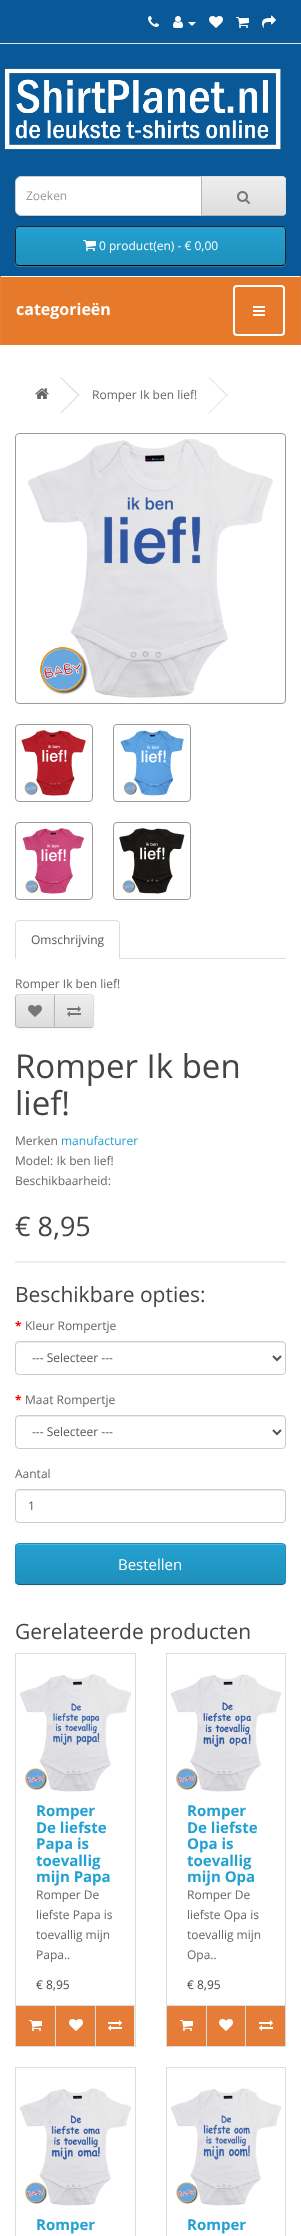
<?xml version="1.0" encoding="UTF-8"?>
<svg xmlns="http://www.w3.org/2000/svg" width="301" height="2236">
    <defs>
        <filter id="blur1" x="-50%" y="-200%" width="200%" height="500%"><feGaussianBlur stdDeviation="0.5"/></filter>
        <clipPath id="clip1"><path d="M 201 176 H 282 C 284 176 286 178 286 180 V 212 C 286 214 284 216 282 216 H 201 Z"/></clipPath>
        <linearGradient id="g1" gradientUnits="userSpaceOnUse" x1="244" y1="177" x2="244" y2="215"><stop offset="0" stop-color="#EEEEEE"/><stop offset="1" stop-color="#DDDDDD"/></linearGradient>
        <clipPath id="clip2"><rect x="15" y="226" width="271" height="40" rx="4"/></clipPath>
        <linearGradient id="g2" gradientUnits="userSpaceOnUse" x1="151" y1="227" x2="151" y2="265"><stop offset="0" stop-color="#23A1D1"/><stop offset="1" stop-color="#1F90BB"/></linearGradient>
        <filter id="blur2" x="-50%" y="-200%" width="200%" height="500%"><feGaussianBlur stdDeviation="1"/></filter>
        <clipPath id="clip3"><path d="M 19 994 H 55 V 1028 H 19 C 17 1028 15 1026 15 1024 V 998 C 15 996 17 994 19 994 Z"/></clipPath>
        <linearGradient id="g3" gradientUnits="userSpaceOnUse" x1="35" y1="995" x2="35" y2="1027"><stop offset="0" stop-color="#EEEEEE"/><stop offset="1" stop-color="#DDDDDD"/></linearGradient>
        <clipPath id="clip4"><path d="M 54 994 H 90 C 92 994 94 996 94 998 V 1024 C 94 1026 92 1028 90 1028 H 54 Z"/></clipPath>
        <linearGradient id="g4" gradientUnits="userSpaceOnUse" x1="74" y1="995" x2="74" y2="1027"><stop offset="0" stop-color="#EEEEEE"/><stop offset="1" stop-color="#DDDDDD"/></linearGradient>
        <clipPath id="clip5"><rect x="15" y="1543" width="271" height="42" rx="4"/></clipPath>
        <linearGradient id="g5" gradientUnits="userSpaceOnUse" x1="151" y1="1544" x2="151" y2="1584"><stop offset="0" stop-color="#23A1D1"/><stop offset="1" stop-color="#1F90BB"/></linearGradient>
    </defs>
    <rect width="100%" height="100%" fill="#095897"/>
    <rect x="0" y="43" width="301" height="1" fill="#E2E2E2"/>
    <image x="148" y="16" width="11" height="11" href="img_01.png"/>
    <image x="173" y="16" width="10" height="12" href="img_02.png"/>
    <path d="M 188 22 H 196 L 192 26 Z" fill="#FFFFFF"/>
    <image x="209" y="16" width="14" height="12" href="img_03.png"/>
    <image x="236" y="17" width="13" height="11" href="img_04.png"/>
    <image x="262" y="15" width="14" height="13" href="img_05.png"/>
    <image x="4" y="68" width="277" height="82" href="img_06.png"/>
    <rect x="15" y="177" width="187" height="40" rx="6" fill="#000000" fill-opacity="0.07" filter="url(#blur1)"/>
    <path d="M 21 176.5 H 201.5 V 215.5 H 21 C 18 215.5 15.5 213 15.5 210 V 182 C 15.5 179 18 176.5 21 176.5 Z" fill="#FFFFFF" stroke="#CCCCCC"/>
    <text x="26" y="200" font-family="Open Sans" font-size="12" fill="#999999">Zoeken</text>
    <path d="M 201 176 H 282 C 284 176 286 178 286 180 V 212 C 286 214 284 216 282 216 H 201 Z" fill="#E7E7E7"/>
    <g clip-path="url(#clip1)">
        <rect x="202" y="177" width="84" height="38" fill="url(#g1)"/>
    </g>
    <path d="M 202 178 H 282 C 284 178 285 179 285 181 V 180 C 285 178 284 177 282 177 H 202 Z" fill="#F1F1F1"/>
    <path d="M 201 176 L 202 177 H 283 L 284 178 L 285 177 L 282 176 Z" fill="#DDDDDD"/>
    <path d="M 286 212 V 180 C 286 179 285.5 178 285 177 L 284 178 C 285 178 285 179 285 180 V 212 C 285 213 285 214 284 214 L 285 215 C 285.5 214 286 213 286 212 Z" fill="#DDDDDD"/>
    <path d="M 282 216 L 285 215 L 284 214 L 283 215 H 202 L 201 216 Z" fill="#B3B3B3"/>
    <path d="M 201 176 V 216 L 202 215 V 177 Z" fill="#B7B7B7"/>
    <image x="237" y="191" width="13" height="13" href="img_07.png"/>
    <path d="M 15 262 C 15 265 16 267 19 267 H 282 C 285 267 286 265 286 262 C 286 264 284 266 282 266 H 17 L 16 264 Z" fill="#3A79AC"/>
    <g clip-path="url(#clip2)">
        <rect x="15" y="227" width="271" height="38" fill="url(#g2)"/>
    </g>
    <path d="M 284.5 264.5 C 284 265 283 265.5 282 265.5 H 19 C 18 265.5 17 265 16.5 264.5" fill="none" stroke="#000000"/>
    <path d="M 16.5 264.5 C 16 264 15.5 263 15.5 262 V 230 C 15.5 229 16 228 16.5 227.5 C 17 227 18 226.5 19 226.5 H 282 C 283 226.5 284 227 284.5 227.5 C 285 228 285.5 229 285.5 230 V 262 C 285.5 263 285 264 284.5 264.5" fill="none" stroke="#222222"/>
    <image x="83" y="240" width="13" height="11" href="img_08.png"/>
    <text x="99" y="250" font-family="Open Sans" font-size="12" fill="#FFFFFF">0 product(en) - € 0,00</text>
    <rect x="0" y="345" width="301" height="1891" fill="#FFFFFF"/>
    <rect x="1" y="277" width="299" height="67" fill="#E67A2A"/>
    <rect x="0" y="276" width="301" height="1" fill="#FFFFFF"/>
    <rect x="300" y="276" width="1" height="69" fill="#E57C37"/>
    <rect x="0" y="344" width="301" height="1" fill="#E57C37"/>
    <rect x="0" y="276" width="1" height="69" fill="#E57C37"/>
    <text x="16" y="315" font-family="Open Sans" font-size="16" font-weight="700" fill="#FFFFFF">categorieën</text>
    <rect x="234" y="286" width="50" height="49" rx="3" fill="none" stroke="#FFFFFF" stroke-width="2"/>
    <image x="253" y="306" width="12" height="10" href="img_09.png"/>
    <image x="35" y="388" width="14" height="11" href="img_10.png"/>
    <path d="M 60 377.5 L 61 377 L 79.5 395 L 78.5 396 Z" fill="#DDDDDD"/>
    <path d="M 60 413 L 78.5 394.5 L 79.5 395 L 61 413.5 Z" fill="#DDDDDD"/>
    <text x="92" y="399" font-family="Open Sans" font-size="12" fill="#666666">Romper Ik ben lief!</text>
    <path d="M 208.5 377.5 L 209 377 L 227.5 395 L 227 396 Z" fill="#DDDDDD"/>
    <path d="M 208.5 413 L 227 394.5 L 227.5 395 L 209 413.5 Z" fill="#DDDDDD"/>
    <rect x="15.5" y="433.5" width="270" height="270" rx="3.5" fill="none" stroke="#9B9B9B"/>
    <image x="27" y="439" width="246" height="259" href="img_11.png"/>
    <rect x="15.5" y="724.5" width="77" height="77" rx="3.5" fill="none" stroke="#9B9B9B"/>
    <image x="21" y="730" width="65" height="66" href="img_12.png"/>
    <rect x="113.5" y="724.5" width="77" height="77" rx="3.5" fill="none" stroke="#9B9B9B"/>
    <image x="120" y="730" width="64" height="66" href="img_13.png"/>
    <rect x="15.5" y="822.5" width="77" height="77" rx="3.5" fill="none" stroke="#9B9B9B"/>
    <image x="22" y="828" width="63" height="66" href="img_14.png"/>
    <rect x="113.5" y="822.5" width="77" height="77" rx="3.5" fill="none" stroke="#9B9B9B"/>
    <image x="119" y="828" width="66" height="66" href="img_15.png"/>
    <rect x="120" y="958" width="166" height="1" fill="#DDDDDD"/>
    <path d="M 19 920 L 16 921 L 17 922 L 19 921 H 116 L 118 922 L 119 921 L 116 920 Z" fill="#DDDDDD"/>
    <path d="M 120 959 V 924 C 120 923 119.5 922 119 921 L 118 922 C 119 922 119 923 119 924 V 958 Z" fill="#DDDDDD"/>
    <path d="M 15 959 L 16 958 V 924 C 16 923 16 922 17 922 L 16 921 C 15.5 922 15 923 15 924 Z" fill="#DDDDDD"/>
    <text x="31" y="944" font-family="Open Sans" font-size="12" fill="#555555">Omschrijving</text>
    <text x="15" y="988" font-family="Open Sans" font-size="12" fill="#666666">Romper Ik ben lief!</text>
    <rect x="15" y="995" width="40" height="34" rx="4" fill="#000000" fill-opacity="0.05" filter="url(#blur2)"/>
    <g clip-path="url(#clip3)">
        <rect x="15" y="995" width="39" height="32" fill="url(#g3)"/>
    </g>
    <path d="M 19 996 H 54 V 995 H 19 C 17.5 995 16 996.5 16 998 V 999 C 16 997 17 996 19 996 Z" fill="#F1F1F1"/>
    <path d="M 19 994 C 18 994 17 994.5 16 995 L 17 996 C 17 995 18 995 19 995 H 54 L 55 994 Z" fill="#DDDDDD"/>
    <path d="M 55 1028 L 54 1027 H 19 C 18 1027 17 1027 17 1026 L 16 1027 C 17 1027.5 18 1028 19 1028 Z" fill="#B3B3B3"/>
    <path d="M 15 998 V 1024 C 15 1025 15.5 1026 16 1027 L 17 1026 C 16 1026 16 1025 16 1024 V 998 C 16 997 16 996 17 996 L 16 995 C 15.5 996 15 997 15 998 Z" fill="#B7B7B7"/>
    <image x="28" y="1005" width="14" height="12" href="img_16.png"/>
    <rect x="54" y="995" width="40" height="34" rx="4" fill="#000000" fill-opacity="0.05" filter="url(#blur2)"/>
    <g clip-path="url(#clip4)">
        <rect x="55" y="995" width="39" height="32" fill="url(#g4)"/>
    </g>
    <path d="M 55 996 H 90 C 92 996 93 997 93 999 V 998 C 93 996.5 91.5 995 90 995 H 55 Z" fill="#F1F1F1"/>
    <path d="M 54 994 L 55 995 H 90 C 91 995 92 995 92 996 L 93 995 C 92 994.5 91 994 90 994 Z" fill="#DDDDDD"/>
    <path d="M 94 1024 V 998 C 94 997 93.5 996 93 995 L 92 996 C 93 996 93 997 93 998 V 1024 C 93 1025 93 1026 92 1026 L 93 1027 C 93.5 1026 94 1025 94 1024 Z" fill="#DDDDDD"/>
    <path d="M 90 1028 C 91 1028 92 1027.5 93 1027 L 92 1026 C 92 1027 91 1027 90 1027 H 55 L 54 1028 Z" fill="#B3B3B3"/>
    <path d="M 54 994 V 1028 L 55 1027 V 995 Z" fill="#B7B7B7"/>
    <image x="67" y="1006" width="14" height="11" href="img_17.png"/>
    <text font-family="Open Sans" font-size="33" fill="#444444">
        <tspan x="15" y="1078">Romper Ik ben</tspan>
        <tspan x="15" y="1115">lief!</tspan>
    </text>
    <text x="15" y="1145" font-family="Open Sans" font-size="12" fill="#666666">Merken</text>
    <text x="61" y="1145" font-family="Open Sans" font-size="12" fill="#23A1D1">manufacturer</text>
    <text font-family="Open Sans" font-size="12" fill="#666666">
        <tspan x="15" y="1165">Model: Ik ben lief!</tspan>
        <tspan x="15" y="1185">Beschikbaarheid:</tspan>
    </text>
    <text x="15" y="1236" font-family="Open Sans" font-size="27" fill="#444444">€ 8,95</text>
    <rect x="15" y="1261" width="271" height="2" fill="#EEEEEE"/>
    <text x="15" y="1302" font-family="Open Sans" font-size="21" fill="#444444">Beschikbare opties:</text>
    <text x="15" y="1330" font-family="Open Sans" font-size="12" font-weight="700" fill="#FF0000">*</text>
    <text x="25" y="1330" font-family="Open Sans" font-size="12" fill="#666666">Kleur Rompertje</text>
    <path d="M 19 1343 H 282 C 284 1343 285 1344 285 1346 V 1345 C 285 1343 284 1342 282 1342 H 19 C 17 1342 16 1343 16 1345 V 1346 C 16 1344 17 1343 19 1343 Z" fill="#ECECEC"/>
    <rect x="15.5" y="1341.5" width="270" height="33" rx="3.5" fill="none" stroke="#CCCCCC"/>
    <path d="M 273 1356 L 277 1360 L 281 1356" fill="none" stroke="#555555" stroke-width="2"/>
    <text x="32" y="1362" font-family="Open Sans" font-size="12" fill="#555555">--- Selecteer ---</text>
    <text x="15" y="1404" font-family="Open Sans" font-size="12" font-weight="700" fill="#FF0000">*</text>
    <text x="25" y="1404" font-family="Open Sans" font-size="12" fill="#666666">Maat Rompertje</text>
    <path d="M 19 1417 H 282 C 284 1417 285 1418 285 1420 V 1419 C 285 1417 284 1416 282 1416 H 19 C 17 1416 16 1417 16 1419 V 1420 C 16 1418 17 1417 19 1417 Z" fill="#ECECEC"/>
    <rect x="15.5" y="1415.5" width="270" height="33" rx="3.5" fill="none" stroke="#CCCCCC"/>
    <path d="M 273 1430 L 277 1434 L 281 1430" fill="none" stroke="#555555" stroke-width="2"/>
    <text x="32" y="1436" font-family="Open Sans" font-size="12" fill="#555555">--- Selecteer ---</text>
    <text x="15" y="1478" font-family="Open Sans" font-size="12" fill="#666666">Aantal</text>
    <path d="M 19 1491 H 282 C 284 1491 285 1492 285 1494 V 1493 C 285 1491 284 1490 282 1490 H 19 C 17 1490 16 1491 16 1493 V 1494 C 16 1492 17 1491 19 1491 Z" fill="#ECECEC"/>
    <rect x="15.5" y="1489.5" width="270" height="33" rx="3.5" fill="none" stroke="#CCCCCC"/>
    <text x="28" y="1510" font-family="Open Sans" font-size="12" fill="#555555">1</text>
    <rect x="15" y="1544" width="271" height="42" rx="4" fill="#000000" fill-opacity="0.05" filter="url(#blur2)"/>
    <g clip-path="url(#clip5)">
        <rect x="15" y="1544" width="271" height="40" fill="url(#g5)"/>
    </g>
    <path d="M 19 1545 H 282 C 284 1545 285 1546 285 1548 V 1547 C 285 1545 284 1544 282 1544 H 19 C 17 1544 16 1545 16 1547 V 1548 C 16 1546 17 1545 19 1545 Z" fill="#4FB4DA"/>
    <path d="M 284.5 1583.5 C 284 1584 283 1584.5 282 1584.5 H 19 C 18 1584.5 17 1584 16.5 1583.5" fill="none" stroke="#145E7A"/>
    <path d="M 16.5 1583.5 C 16 1583 15.5 1582 15.5 1581 V 1547 C 15.5 1546 16 1545 16.5 1544.5 C 17 1544 18 1543.5 19 1543.5 H 282 C 283 1543.5 284 1544 284.5 1544.5 C 285 1545 285.5 1546 285.5 1547 V 1581 C 285.5 1582 285 1583 284.5 1583.5" fill="none" stroke="#1F90BB"/>
    <text x="118" y="1570" font-family="Open Sans" font-size="15" fill="#FFFFFF">Bestellen</text>
    <text x="15" y="1639" font-family="Open Sans" font-size="21" fill="#444444">Gerelateerde producten</text>
    <rect x="15.5" y="1653.5" width="120" height="393" fill="none" stroke="#DDDDDD"/>
    <image x="19" y="1674" width="113" height="118" href="img_18.png"/>
    <text font-family="Open Sans" font-size="15" font-weight="700" fill="#23A1D1">
        <tspan x="36" y="1816">Romper</tspan>
        <tspan x="36" y="1833">De liefste</tspan>
        <tspan x="36" y="1849">Papa is</tspan>
        <tspan x="36" y="1866">toevallig</tspan>
        <tspan x="36" y="1882">mijn Papa</tspan>
    </text>
    <text font-family="Open Sans" font-size="12" fill="#666666">
        <tspan x="36" y="1899">Romper De</tspan>
        <tspan x="36" y="1919">liefste Papa is</tspan>
        <tspan x="36" y="1939">toevallig mijn</tspan>
        <tspan x="36" y="1959">Papa..</tspan>
    </text>
    <text x="36" y="1989" font-family="Open Sans" font-size="12" fill="#444444">€ 8,95</text>
    <rect x="134" y="2006" width="1" height="40" fill="#EEEEEE"/>
    <rect x="16" y="2005" width="119" height="1" fill="#DDDDDD"/>
    <rect x="16" y="2006" width="39" height="40" fill="#E57C37"/>
    <image x="29" y="2020" width="13" height="11" href="img_19.png"/>
    <rect x="56" y="2006" width="39" height="40" fill="#E57C37"/>
    <rect x="55" y="2006" width="1" height="40" fill="#DDDDDD"/>
    <image x="69" y="2019" width="14" height="12" href="img_20.png"/>
    <rect x="96" y="2006" width="38" height="40" fill="#E57C37"/>
    <rect x="95" y="2006" width="1" height="40" fill="#DDDDDD"/>
    <image x="108" y="2020" width="14" height="11" href="img_21.png"/>
    <rect x="166.5" y="1653.5" width="119" height="393" fill="none" stroke="#DDDDDD"/>
    <image x="170" y="1674" width="112" height="118" href="img_22.png"/>
    <text font-family="Open Sans" font-size="15" font-weight="700" fill="#23A1D1">
        <tspan x="187" y="1816">Romper</tspan>
        <tspan x="187" y="1833">De liefste</tspan>
        <tspan x="187" y="1849">Opa is</tspan>
        <tspan x="187" y="1866">toevallig</tspan>
        <tspan x="187" y="1882">mijn Opa</tspan>
    </text>
    <text font-family="Open Sans" font-size="12" fill="#666666">
        <tspan x="187" y="1899">Romper De</tspan>
        <tspan x="187" y="1919">liefste Opa is</tspan>
        <tspan x="187" y="1939">toevallig mijn</tspan>
        <tspan x="187" y="1959">Opa..</tspan>
    </text>
    <text x="187" y="1989" font-family="Open Sans" font-size="12" fill="#444444">€ 8,95</text>
    <rect x="167" y="2005" width="118" height="1" fill="#DDDDDD"/>
    <rect x="167" y="2006" width="39" height="40" fill="#E57C37"/>
    <image x="180" y="2020" width="13" height="11" href="img_19.png"/>
    <rect x="207" y="2006" width="38" height="40" fill="#E57C37"/>
    <rect x="206" y="2006" width="1" height="40" fill="#DDDDDD"/>
    <image x="219" y="2019" width="14" height="12" href="img_20.png"/>
    <rect x="246" y="2006" width="39" height="40" fill="#E57C37"/>
    <rect x="245" y="2006" width="1" height="40" fill="#DDDDDD"/>
    <image x="259" y="2020" width="14" height="11" href="img_21.png"/>
    <rect x="15.5" y="2067.5" width="120" height="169" fill="none" stroke="#DDDDDD"/>
    <image x="19" y="2088" width="113" height="118" href="img_23.png"/>
    <text x="36" y="2230" font-family="Open Sans" font-size="15" font-weight="700" fill="#23A1D1">Romper</text>
    <rect x="166.5" y="2067.5" width="119" height="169" fill="none" stroke="#DDDDDD"/>
    <image x="170" y="2088" width="112" height="118" href="img_24.png"/>
    <text x="187" y="2230" font-family="Open Sans" font-size="15" font-weight="700" fill="#23A1D1">Romper</text>
</svg>
